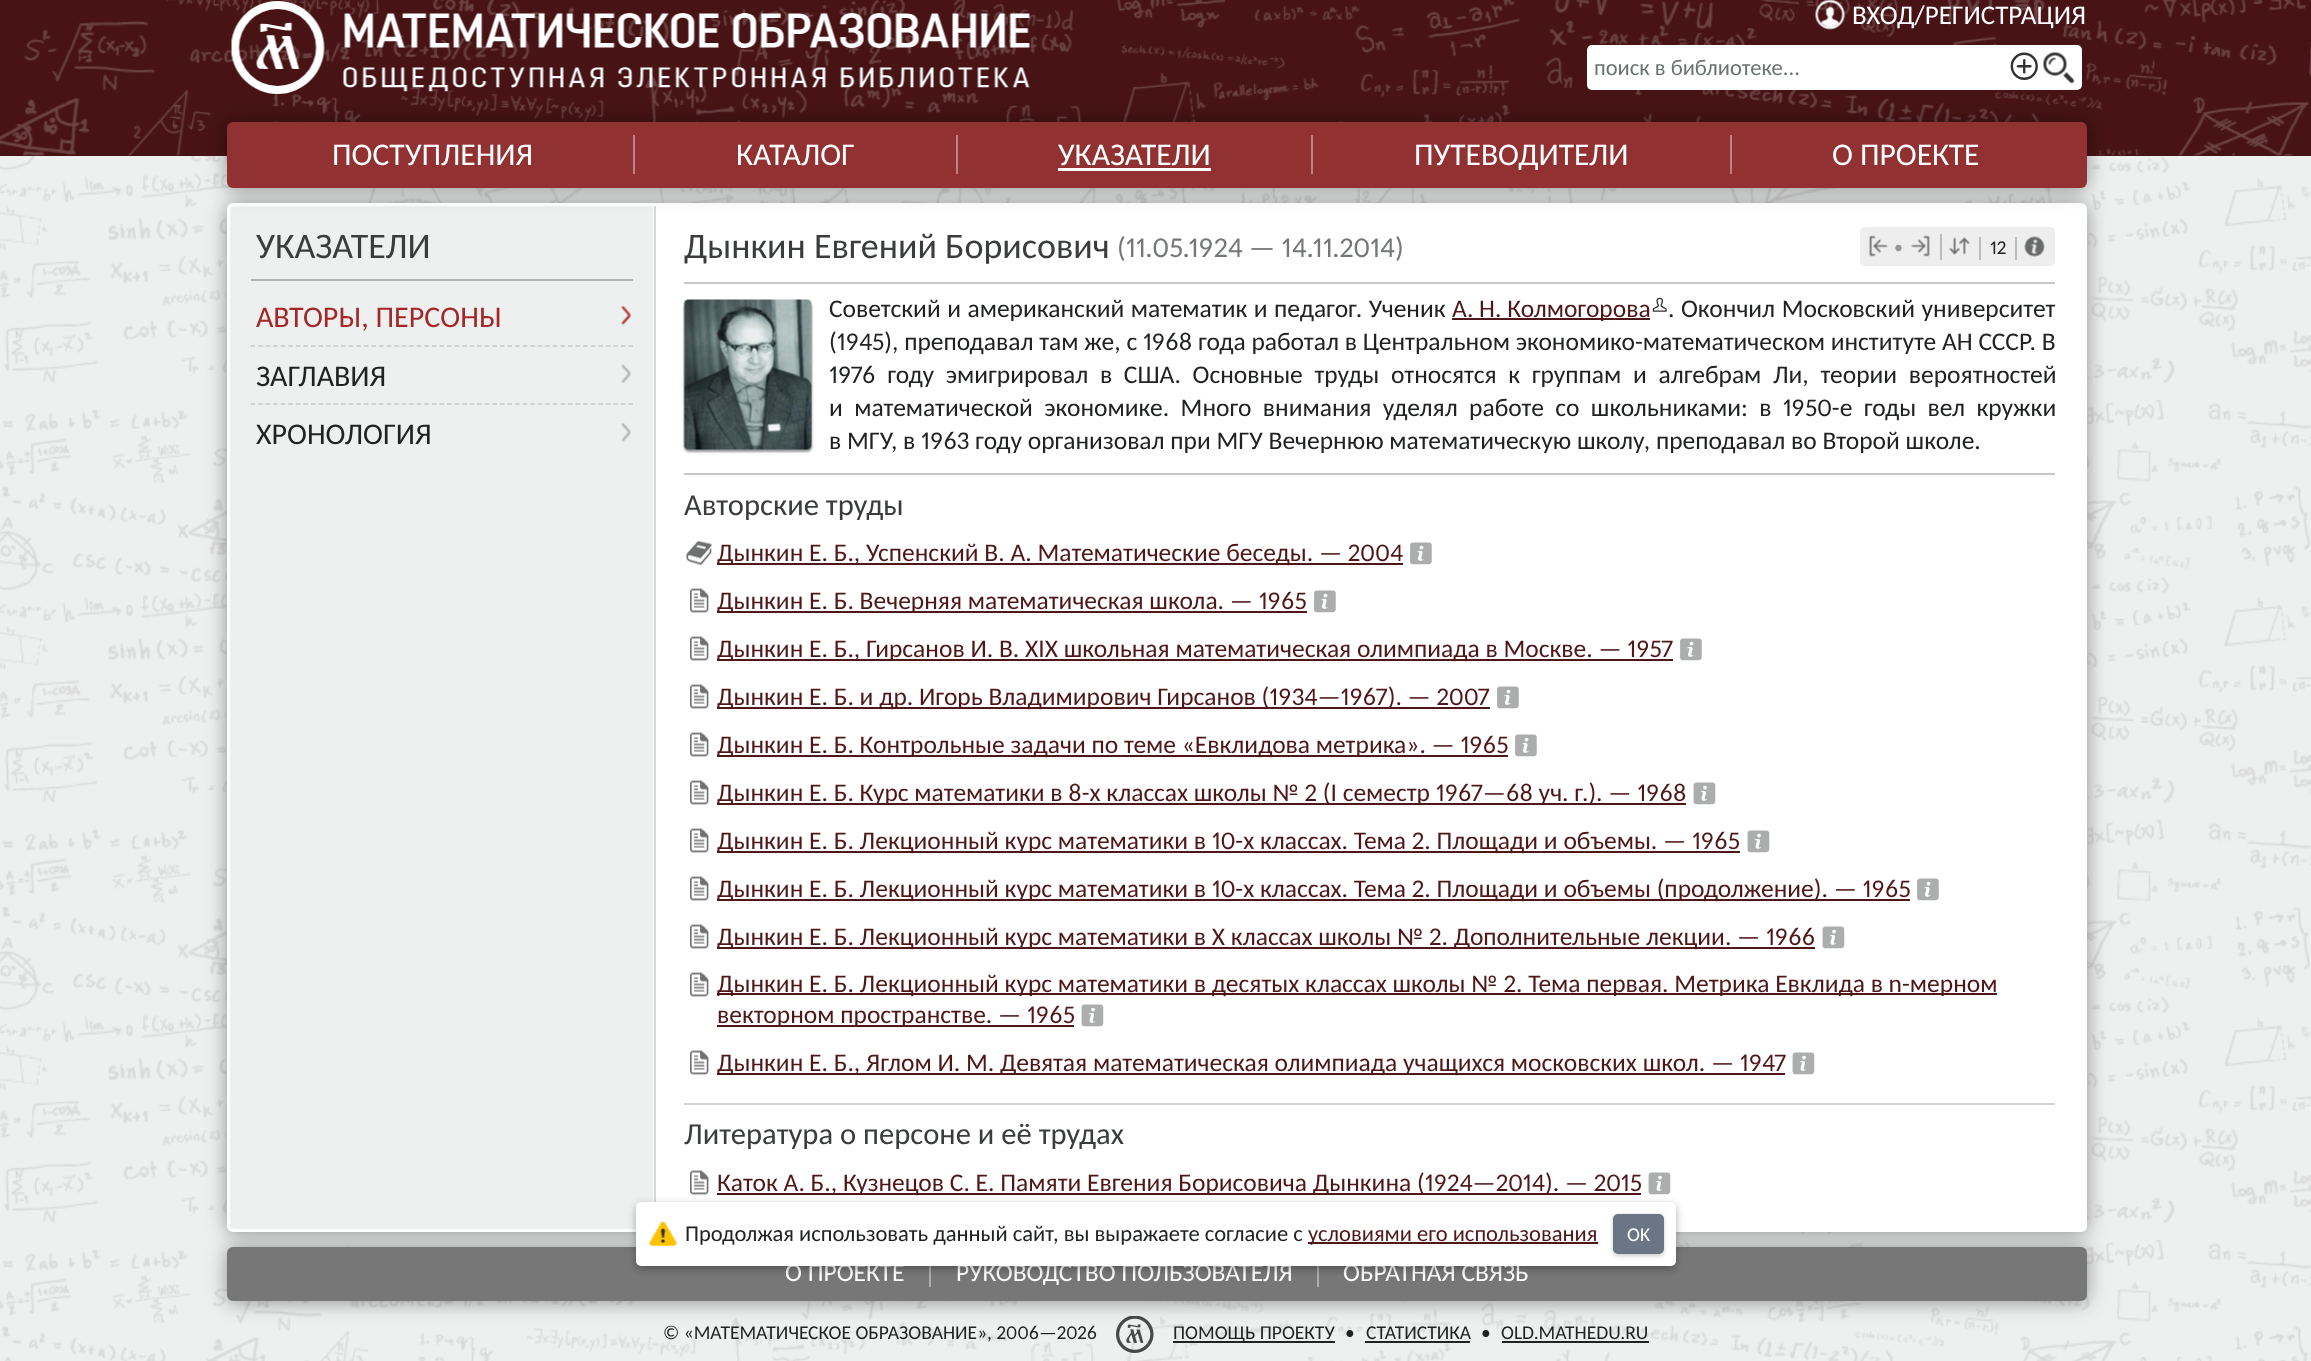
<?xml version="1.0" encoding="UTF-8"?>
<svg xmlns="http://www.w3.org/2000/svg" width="2311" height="1361">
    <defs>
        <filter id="blur1" x="-50%" y="-200%" width="200%" height="500%"><feGaussianBlur stdDeviation="10"/></filter>
        <filter id="blur2" x="-50%" y="-200%" width="200%" height="500%"><feGaussianBlur stdDeviation="1"/></filter>
        <filter id="blur3" x="-50%" y="-200%" width="200%" height="500%"><feGaussianBlur stdDeviation="4.5"/></filter>
        <filter id="blur4" x="-50%" y="-200%" width="200%" height="500%"><feGaussianBlur stdDeviation="2"/></filter>
    </defs>
    <rect width="100%" height="100%" fill="#FFFFFF"/>
    <image x="0" y="156" width="2311" height="1205" href="img_01.png"/>
    <rect x="0" y="155" width="2311" height="1" fill="#471314"/>
    <image x="0" y="0" width="2311" height="156" href="img_02.png"/>
    <rect x="227" y="1248" width="1860" height="54" rx="6" fill="#000000" fill-opacity="0.4" filter="url(#blur1)"/>
    <rect x="227" y="1247" width="1860" height="54" rx="6" fill="#777777"/>
    <rect x="929" y="1260" width="2" height="27" fill="#ADADAD"/>
    <rect x="1317" y="1260" width="2" height="27" fill="#ADADAD"/>
    <rect x="227" y="204" width="1860" height="1029" rx="6" fill="#000000" fill-opacity="0.4" filter="url(#blur1)"/>
    <rect x="227" y="203" width="1860" height="1029" rx="6" fill="#FFFFFF"/>
    <path d="M 235 206 H 653 V 1229 H 235 C 232 1229 230 1227 230 1224 V 211 C 230 208 232 206 235 206 Z" fill="#EEF0EF"/>
    <rect x="654" y="206" width="2" height="996" fill="#D9D9D9"/>
    <rect x="227" y="123" width="1860" height="66" rx="6" fill="#000000" fill-opacity="0.4" filter="url(#blur1)"/>
    <image x="231" y="1" width="799" height="93" href="img_03.png"/>
    <image x="1815" y="0" width="30" height="30" href="img_04.png"/>
    <text x="1852" y="24" font-family="Carlito" font-size="27" fill="#FFFFFF">ВХОД/РЕГИСТРАЦИЯ</text>
    <rect x="1587" y="45" width="495" height="45" rx="5" fill="#FFFFFF"/>
    <text x="1594" y="75" font-family="Carlito" font-size="22.5" fill="#6B726F">поиск в библиотеке...</text>
    <image x="2010" y="52" width="28" height="28" href="img_05.png"/>
    <image x="2043" y="52" width="32" height="32" href="img_06.png"/>
    <rect x="227" y="122" width="1860" height="66" rx="6" fill="#913132"/>
    <text x="332" y="165" font-family="Carlito" font-size="31.5" fill="#FFFFFF">ПОСТУПЛЕНИЯ</text>
    <rect x="633" y="135" width="2" height="39" fill="#BD8384"/>
    <text x="736" y="165" font-family="Carlito" font-size="31.5" fill="#FFFFFF">КАТАЛОГ</text>
    <rect x="956" y="135" width="2" height="39" fill="#BD8384"/>
    <text x="1058" y="165" font-family="Carlito" font-size="31.5" fill="#FFFFFF">УКАЗАТЕЛИ</text>
    <rect x="1058" y="168" width="153" height="3" fill="#FFFFFF"/>
    <rect x="1311" y="135" width="2" height="39" fill="#BD8384"/>
    <text x="1414" y="165" font-family="Carlito" font-size="31.5" fill="#FFFFFF">ПУТЕВОДИТЕЛИ</text>
    <rect x="1730" y="135" width="2" height="39" fill="#BD8384"/>
    <text x="1832" y="165" font-family="Carlito" font-size="31.5" fill="#FFFFFF">О ПРОЕКТЕ</text>
    <rect x="251" y="279" width="382" height="2" fill="#B0B3B2"/>
    <text x="256" y="258" font-family="Carlito" font-size="36" fill="#3A3D3C">УКАЗАТЕЛИ</text>
    <path d="M 250.5 346 H 633" fill="none" stroke="#C5C7C6" stroke-width="1.5" stroke-dasharray="4.5 3.06"/>
    <text x="256" y="327" font-family="Carlito" font-size="30" fill="#A32728">АВТОРЫ, ПЕРСОНЫ</text>
    <image x="621" y="305" width="10" height="20" href="img_07.png"/>
    <path d="M 250.5 404 H 633" fill="none" stroke="#C5C7C6" stroke-width="1.5" stroke-dasharray="4.5 3.06"/>
    <text x="256" y="386" font-family="Carlito" font-size="30" fill="#212322">ЗАГЛАВИЯ</text>
    <image x="621" y="364" width="10" height="19" href="img_08.png"/>
    <text x="256" y="444" font-family="Carlito" font-size="30" fill="#212322">ХРОНОЛОГИЯ</text>
    <image x="621" y="423" width="10" height="19" href="img_09.png"/>
    <text x="684" y="258" font-family="Carlito" font-size="36" fill="#3A3D3C">Дынкин Евгений Борисович</text>
    <text x="1117" y="257" font-family="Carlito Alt" font-size="28.75" fill="#757777">(11.05.1924 — 14.11.2014)</text>
    <rect x="1860" y="227" width="195" height="39" rx="5" fill="#EEEEEE"/>
    <image x="1869" y="235" width="19" height="22" href="img_10.png"/>
    <text x="1894" y="253" font-family="Carlito" font-size="18" fill="#949896">•</text>
    <image x="1911" y="235" width="19" height="22" href="img_11.png"/>
    <rect x="1940" y="234" width="2" height="26" fill="#BBBBBB"/>
    <image x="1949" y="237" width="21" height="18" href="img_12.png"/>
    <rect x="1979" y="237" width="2" height="23" fill="#BBBBBB"/>
    <text x="1990" y="254" font-family="Carlito Alt" font-size="19.5" fill="#212322">12</text>
    <rect x="2015" y="237" width="2" height="23" fill="#BBBBBB"/>
    <image x="2024" y="236" width="21" height="21" href="img_13.png"/>
    <rect x="684" y="282" width="1371" height="2" fill="#C8C8C8"/>
    <rect x="684" y="302" width="128" height="150" rx="5" fill="#000000" fill-opacity="0.4" filter="url(#blur2)"/>
    <image x="683" y="299" width="129" height="151" href="img_14.png"/>
    <text x="829" y="317" word-spacing="0.75" font-family="Carlito" font-size="25.5" fill="#212322">Советский и американский математик и педагог. Ученик</text>
    <rect x="1452" y="318" width="198" height="2" fill="#4F1717"/>
    <text x="1452" y="317" font-family="Carlito" font-size="25.5" fill="#4F1717">А. Н. Колмогорова</text>
    <image x="1652" y="297" width="15" height="15" href="img_15.png"/>
    <text x="1668" y="317" word-spacing="0.75" font-family="Carlito" font-size="25.5" fill="#212322">. Окончил Московский университет</text>
    <text font-family="Carlito Alt" font-size="25.5" fill="#212322">
        <tspan x="829" y="350">(1945), преподавал там же, с 1968 года работал в Центральном экономико-математическом институте АН СССР. В</tspan>
        <tspan x="829" y="383" word-spacing="5.9">1976 году эмигрировал в США. Основные труды относятся к группам и алгебрам Ли, теории вероятностей</tspan>
        <tspan x="829" y="416" word-spacing="5.6">и математической экономике. Много внимания уделял работе со школьниками: в 1950-е годы вел кружки</tspan>
        <tspan x="829" y="449">в МГУ, в 1963 году организовал при МГУ Вечернюю математическую школу, преподавал во Второй школе.</tspan>
    </text>
    <rect x="684" y="473" width="1371" height="2" fill="#C8C8C8"/>
    <text x="684" y="515" font-family="Carlito" font-size="30.6" fill="#3A3D3C">Авторские труды</text>
    <image x="686" y="540" width="26" height="26" href="img_16.png"/>
    <rect x="717" y="563" width="686" height="2" fill="#4F1717"/>
    <text x="717" y="561" font-family="Carlito Alt" font-size="25.5" fill="#4F1717">Дынкин Е. Б., Успенский В. А. Математические беседы. — 2004</text>
    <image x="1410" y="542" width="22" height="23" href="img_17.png"/>
    <image x="690" y="588" width="19" height="25" href="img_18.png"/>
    <rect x="717" y="611" width="590" height="2" fill="#4F1717"/>
    <text x="717" y="609" font-family="Carlito Alt" font-size="25.5" fill="#4F1717">Дынкин Е. Б. Вечерняя математическая школа. — 1965</text>
    <image x="1314" y="590" width="22" height="23" href="img_17.png"/>
    <image x="690" y="636" width="19" height="25" href="img_18.png"/>
    <rect x="717" y="659" width="956" height="2" fill="#4F1717"/>
    <text x="717" y="657" font-family="Carlito Alt" font-size="25.5" fill="#4F1717">Дынкин Е. Б., Гирсанов И. В. XIX школьная математическая олимпиада в Москве. — 1957</text>
    <image x="1680" y="638" width="22" height="23" href="img_17.png"/>
    <image x="690" y="684" width="19" height="25" href="img_18.png"/>
    <rect x="717" y="707" width="773" height="2" fill="#4F1717"/>
    <text x="717" y="705" font-family="Carlito Alt" font-size="25.5" fill="#4F1717">Дынкин Е. Б. и др. Игорь Владимирович Гирсанов (1934—1967). — 2007</text>
    <image x="1497" y="686" width="22" height="23" href="img_17.png"/>
    <image x="690" y="732" width="19" height="25" href="img_18.png"/>
    <rect x="717" y="755" width="791" height="2" fill="#4F1717"/>
    <text x="717" y="753" font-family="Carlito Alt" font-size="25.5" fill="#4F1717">Дынкин Е. Б. Контрольные задачи по теме «Евклидова метрика». — 1965</text>
    <image x="1515" y="734" width="22" height="23" href="img_17.png"/>
    <image x="690" y="780" width="19" height="25" href="img_18.png"/>
    <rect x="717" y="803" width="969" height="2" fill="#4F1717"/>
    <text x="717" y="801" font-family="Carlito Alt" font-size="25.5" fill="#4F1717">Дынкин Е. Б. Курс математики в 8-х классах школы № 2 (I семестр 1967—68 уч. г.). — 1968</text>
    <image x="1693" y="782" width="23" height="23" href="img_19.png"/>
    <image x="690" y="828" width="19" height="25" href="img_18.png"/>
    <rect x="717" y="851" width="1023" height="2" fill="#4F1717"/>
    <text x="717" y="849" font-family="Carlito Alt" font-size="25.5" fill="#4F1717">Дынкин Е. Б. Лекционный курс математики в 10-х классах. Тема 2. Площади и объемы. — 1965</text>
    <image x="1747" y="830" width="23" height="23" href="img_20.png"/>
    <image x="690" y="876" width="19" height="25" href="img_18.png"/>
    <rect x="717" y="899" width="1193" height="2" fill="#4F1717"/>
    <text x="717" y="897" font-family="Carlito Alt" font-size="25.5" fill="#4F1717">Дынкин Е. Б. Лекционный курс математики в 10-х классах. Тема 2. Площади и объемы (продолжение). — 1965</text>
    <image x="1917" y="878" width="22" height="23" href="img_17.png"/>
    <image x="690" y="924" width="19" height="25" href="img_18.png"/>
    <rect x="717" y="947" width="1098" height="2" fill="#4F1717"/>
    <text x="717" y="945" font-family="Carlito Alt" font-size="25.5" fill="#4F1717">Дынкин Е. Б. Лекционный курс математики в X классах школы № 2. Дополнительные лекции. — 1966</text>
    <image x="1822" y="926" width="23" height="23" href="img_20.png"/>
    <image x="690" y="972" width="19" height="25" href="img_18.png"/>
    <rect x="717" y="993" width="1280" height="2" fill="#4F1717"/>
    <text x="717" y="992" font-family="Carlito" font-size="25.5" fill="#4F1717">Дынкин Е. Б. Лекционный курс математики в десятых классах школы № 2. Тема первая. Метрика Евклида в n-мерном</text>
    <rect x="717" y="1025" width="357" height="2" fill="#4F1717"/>
    <text x="717" y="1023" font-family="Carlito Alt" font-size="25.5" fill="#4F1717">векторном пространстве. — 1965</text>
    <image x="1081" y="1004" width="23" height="23" href="img_20.png"/>
    <image x="690" y="1050" width="19" height="25" href="img_18.png"/>
    <rect x="717" y="1073" width="1068" height="2" fill="#4F1717"/>
    <text x="717" y="1071" font-family="Carlito Alt" font-size="25.5" fill="#4F1717">Дынкин Е. Б., Яглом И. М. Девятая математическая олимпиада учащихся московских школ. — 1947</text>
    <image x="1792" y="1052" width="23" height="23" href="img_20.png"/>
    <rect x="684" y="1103" width="1371" height="2" fill="#D3D3D3"/>
    <text x="684" y="1144" font-family="Carlito" font-size="30.6" fill="#3A3D3C">Литература о персоне и её трудах</text>
    <image x="690" y="1170" width="19" height="25" href="img_21.png"/>
    <rect x="717" y="1193" width="924" height="2" fill="#4F1717"/>
    <text x="717" y="1191" font-family="Carlito Alt" font-size="25.5" fill="#4F1717">Каток А. Б., Кузнецов С. Е. Памяти Евгения Борисовича Дынкина (1924—2014). — 2015</text>
    <image x="1648" y="1172" width="23" height="23" href="img_20.png"/>
    <text x="785" y="1281" font-family="Carlito" font-size="25.5" fill="#FFFFFF">О ПРОЕКТЕ</text>
    <text x="956" y="1281" font-family="Carlito" font-size="25.5" fill="#FFFFFF">РУКОВОДСТВО ПОЛЬЗОВАТЕЛЯ</text>
    <text x="1343" y="1281" font-family="Carlito" font-size="25.5" fill="#FFFFFF">ОБРАТНАЯ СВЯЗЬ</text>
    <text x="663" y="1339" font-family="Carlito Alt" font-size="19.5" fill="#212322">© «МАТЕМАТИЧЕСКОЕ ОБРАЗОВАНИЕ», 2006—2026</text>
    <image x="1116" y="1316" width="38" height="37" href="img_22.png"/>
    <rect x="1173" y="1341" width="162" height="2" fill="#212322"/>
    <text x="1173" y="1339" font-family="Carlito" font-size="19.5" fill="#212322">ПОМОЩЬ ПРОЕКТУ</text>
    <text x="1345" y="1339" font-family="Carlito" font-size="19.5" fill="#212322">•</text>
    <text x="1366" y="1339" font-family="Carlito" font-size="19.5" fill="#212322">СТАТИСТИКА</text>
    <rect x="1365" y="1341" width="105" height="2" fill="#212322"/>
    <text x="1481" y="1339" font-family="Carlito" font-size="19.5" fill="#212322">•</text>
    <text x="1501" y="1339" font-family="Carlito" font-size="19.5" fill="#212322">OLD.MATHEDU.RU</text>
    <rect x="1502" y="1341" width="147" height="2" fill="#212322"/>
    <rect x="636" y="1205" width="1040" height="64" rx="5" fill="#000000" fill-opacity="0.3" filter="url(#blur3)"/>
    <rect x="636" y="1202" width="1040" height="64" rx="5" fill="#FFFFFF"/>
    <image x="649" y="1221" width="28" height="25" href="img_23.png"/>
    <text x="685" y="1241" font-family="Carlito" font-size="22.5" fill="#212322">Продолжая использовать данный сайт, вы выражаете согласие с</text>
    <rect x="1308" y="1242" width="290" height="2" fill="#4F1717"/>
    <text x="1308" y="1241" font-family="Carlito" font-size="22.5" fill="#4F1717">условиями его использования</text>
    <rect x="1613" y="1215" width="51" height="41" rx="5" fill="#000000" fill-opacity="0.2" filter="url(#blur4)"/>
    <rect x="1614" y="1215" width="49" height="38" rx="4" fill="#6A7685" stroke="#6A7685" stroke-width="2"/>
    <text x="1627" y="1241" font-family="Carlito" font-size="19.5" fill="#FFFFFF">OK</text>
</svg>
